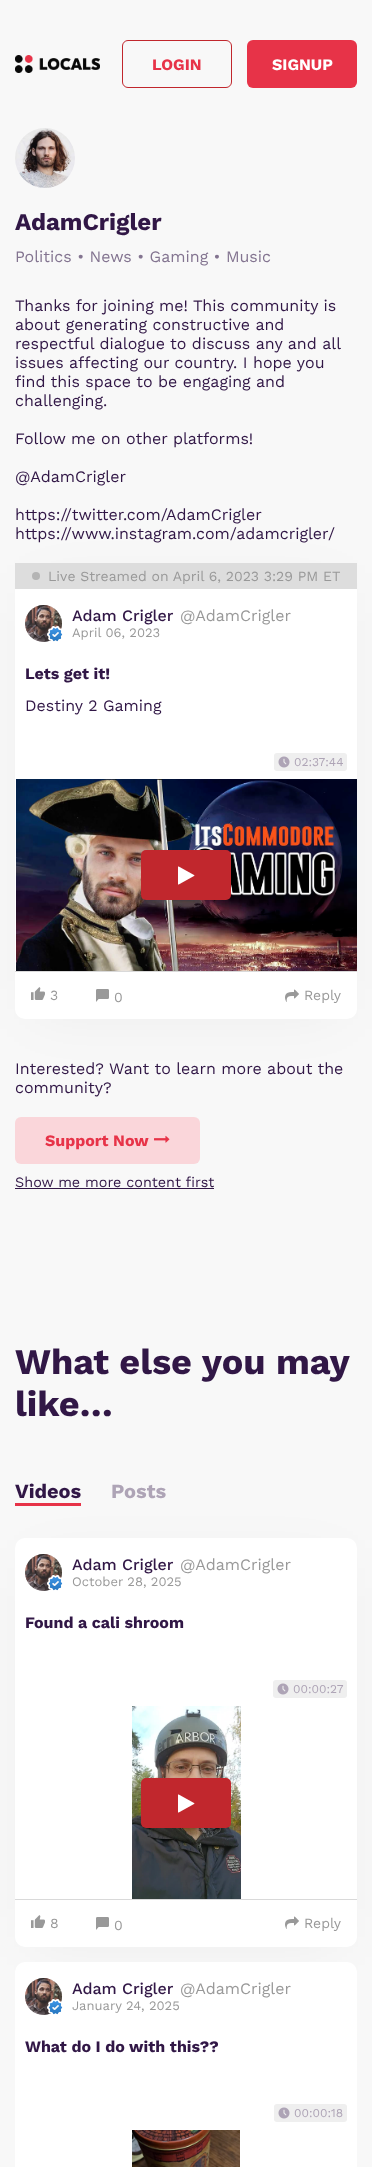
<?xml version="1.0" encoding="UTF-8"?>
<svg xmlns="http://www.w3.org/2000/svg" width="372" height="2167">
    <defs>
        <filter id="blur1" x="-50%" y="-200%" width="200%" height="500%"><feGaussianBlur stdDeviation="30"/></filter>
    </defs>
    <rect width="100%" height="100%" fill="#F8F8F8"/>
    <image x="15" y="55" width="85" height="18" href="img_01.png"/>
    <rect x="122.5" y="40.5" width="109" height="47" rx="5.5" fill="none" stroke="#C1272D"/>
    <text x="152" y="70" font-family="Work Sans" font-size="16" font-weight="700" fill="#E73348">LOGIN</text>
    <rect x="247" y="40" width="110" height="48" rx="6" fill="#E73348"/>
    <text x="272" y="70" font-family="Work Sans" font-size="16" font-weight="700" fill="#FFFFFF">SIGNUP</text>
    <image x="15" y="128" width="60" height="60" href="img_02.png"/>
    <text x="15" y="230" font-family="Work Sans" font-size="24" font-weight="700" fill="#311746">AdamCrigler</text>
    <text x="15" y="262" font-family="Work Sans" font-size="16" fill="#837490">Politics • News • Gaming • Music</text>
    <text font-family="Work Sans" font-size="16" fill="#311746">
        <tspan x="15" y="311">Thanks for joining me! This community is</tspan>
        <tspan x="15" y="330">about generating constructive and</tspan>
        <tspan x="15" y="349">respectful dialogue to discuss any and all</tspan>
        <tspan x="15" y="368">issues affecting our country. I hope you</tspan>
        <tspan x="15" y="387">find this space to be engaging and</tspan>
        <tspan x="15" y="406">challenging.</tspan>
    </text>
    <text x="15" y="444" font-family="Work Sans" font-size="16" fill="#311746">Follow me on other platforms!</text>
    <text x="15" y="482" font-family="Work Sans" font-size="16" fill="#311746">@AdamCrigler</text>
    <text font-family="Work Sans" font-size="16" fill="#311746">
        <tspan x="15" y="520">https://twitter.com/AdamCrigler</tspan>
        <tspan x="15" y="539">https://www.instagram.com/adamcrigler/</tspan>
    </text>
    <rect x="35" y="593" width="302" height="416" fill="#000000" fill-opacity="0.06" filter="url(#blur1)"/>
    <rect x="15" y="563" width="342" height="456" rx="10" fill="#FFFFFF"/>
    <rect x="15" y="563" width="342" height="26" fill="#DDDDDD"/>
    <circle cx="36" cy="576" r="4" fill="#B4B4B4"/>
    <text x="48" y="581" font-family="Work Sans" font-size="14" fill="#999999">Live Streamed on April 6, 2023 3:29 PM ET</text>
    <circle cx="43.5" cy="623.5" r="18.5" fill="#BFBFBF"/>
    <image x="25" y="605" width="37" height="37" href="img_03.png"/>
    <image x="47" y="626" width="16" height="16" href="img_04.png"/>
    <text x="72" y="621" font-family="Work Sans" font-size="16" font-weight="500" fill="#311746">Adam Crigler</text>
    <text x="180" y="621" font-family="Work Sans" font-size="16" fill="#999999">@AdamCrigler</text>
    <text x="72" y="637" font-family="Work Sans" font-size="13" fill="#999999">April 06, 2023</text>
    <text x="25" y="679" font-family="Work Sans" font-size="16" font-weight="700" fill="#311746">Lets get it!</text>
    <text x="25" y="711" font-family="Work Sans" font-size="16" fill="#311746">Destiny 2 Gaming</text>
    <rect x="274" y="753" width="73" height="18" rx="3" fill="#EFEFEF"/>
    <image x="278" y="756" width="12" height="12" href="img_05.png"/>
    <text x="294" y="766" font-family="Work Sans" font-size="12" fill="#AEA4B6">02:37:44</text>
    <image x="16" y="779" width="341" height="192" href="img_06.png"/>
    <rect x="141" y="850" width="90" height="50" rx="5" fill="#C1272D"/>
    <image x="178" y="866" width="17" height="19" href="img_07.png"/>
    <rect x="15" y="971" width="342" height="1" fill="#D9D9D9"/>
    <image x="31" y="987" width="14" height="13" href="img_08.png"/>
    <text x="50" y="1000" font-family="Work Sans" font-size="14" fill="#999999">3</text>
    <image x="96" y="989" width="13" height="13" href="img_09.png"/>
    <text x="114" y="1002" font-family="Work Sans" font-size="14" fill="#999999">0</text>
    <image x="285" y="989" width="14" height="13" href="img_10.png"/>
    <text x="304" y="1000" font-family="Work Sans" font-size="14" fill="#999999">Reply</text>
    <text font-family="Work Sans" font-size="16" fill="#311746">
        <tspan x="15" y="1074">Interested? Want to learn more about the</tspan>
        <tspan x="15" y="1093">community?</tspan>
    </text>
    <rect x="15" y="1117" width="185" height="47" rx="6" fill="#FAD6DA"/>
    <text x="45" y="1146" font-family="Work Sans" font-size="16" font-weight="700" fill="#E73348">Support Now</text>
    <image x="154" y="1135" width="16" height="8" href="img_11.png"/>
    <text x="15" y="1187" font-family="Work Sans" font-size="14.4" fill="#311746">Show me more content first</text>
    <rect x="15" y="1188" width="199" height="1" fill="#311746"/>
    <text font-family="Work Sans" font-size="36" font-weight="700" fill="#311746">
        <tspan x="15" y="1374">What else you may</tspan>
        <tspan x="15" y="1416">like…</tspan>
    </text>
    <text x="15" y="1498" font-family="Work Sans" font-size="20" font-weight="700" fill="#311746">Videos</text>
    <rect x="15" y="1503" width="66" height="3" fill="#E73348"/>
    <text x="111" y="1498" font-family="Work Sans" font-size="20" font-weight="700" fill="#AEA4B6">Posts</text>
    <rect x="35" y="1568" width="302" height="369" fill="#000000" fill-opacity="0.06" filter="url(#blur1)"/>
    <rect x="15" y="1538" width="342" height="409" rx="10" fill="#FFFFFF"/>
    <circle cx="43.5" cy="1572.5" r="18.5" fill="#BFBFBF"/>
    <image x="25" y="1554" width="37" height="37" href="img_12.png"/>
    <image x="47" y="1575" width="16" height="16" href="img_04.png"/>
    <text x="72" y="1570" font-family="Work Sans" font-size="16" font-weight="500" fill="#311746">Adam Crigler</text>
    <text x="180" y="1570" font-family="Work Sans" font-size="16" fill="#999999">@AdamCrigler</text>
    <text x="72" y="1586" font-family="Work Sans" font-size="13" fill="#999999">October 28, 2025</text>
    <text x="25" y="1628" font-family="Work Sans" font-size="16" font-weight="700" fill="#311746">Found a cali shroom</text>
    <rect x="273" y="1680" width="74" height="18" rx="3" fill="#EFEFEF"/>
    <image x="277" y="1683" width="12" height="12" href="img_05.png"/>
    <text x="293" y="1693" font-family="Work Sans" font-size="12" fill="#AEA4B6">00:00:27</text>
    <image x="132" y="1706" width="109" height="193" href="img_13.png"/>
    <rect x="141" y="1778" width="90" height="50" rx="5" fill="#C1272D"/>
    <image x="178" y="1794" width="17" height="19" href="img_07.png"/>
    <rect x="15" y="1899" width="342" height="1" fill="#D9D9D9"/>
    <image x="31" y="1915" width="14" height="13" href="img_08.png"/>
    <text x="50" y="1928" font-family="Work Sans" font-size="14" fill="#999999">8</text>
    <image x="96" y="1917" width="13" height="13" href="img_09.png"/>
    <text x="114" y="1930" font-family="Work Sans" font-size="14" fill="#999999">0</text>
    <image x="285" y="1916" width="14" height="13" href="img_10.png"/>
    <text x="304" y="1928" font-family="Work Sans" font-size="14" fill="#999999">Reply</text>
    <rect x="15" y="1962" width="342" height="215" rx="10" fill="#FFFFFF"/>
    <circle cx="43.5" cy="1996.5" r="18.5" fill="#BFBFBF"/>
    <image x="25" y="1978" width="37" height="37" href="img_03.png"/>
    <image x="47" y="1999" width="16" height="16" href="img_04.png"/>
    <text x="72" y="1994" font-family="Work Sans" font-size="16" font-weight="500" fill="#311746">Adam Crigler</text>
    <text x="180" y="1994" font-family="Work Sans" font-size="16" fill="#999999">@AdamCrigler</text>
    <text x="72" y="2010" font-family="Work Sans" font-size="13" fill="#999999">January 24, 2025</text>
    <text x="25" y="2052" font-family="Work Sans" font-size="16" font-weight="700" fill="#311746">What do I do with this??</text>
    <rect x="274" y="2104" width="73" height="18" rx="3" fill="#EFEFEF"/>
    <image x="278" y="2107" width="12" height="12" href="img_05.png"/>
    <text x="294" y="2117" font-family="Work Sans" font-size="12" fill="#AEA4B6">00:00:18</text>
    <image x="132" y="2130" width="108" height="37" href="img_14.png"/>
</svg>
